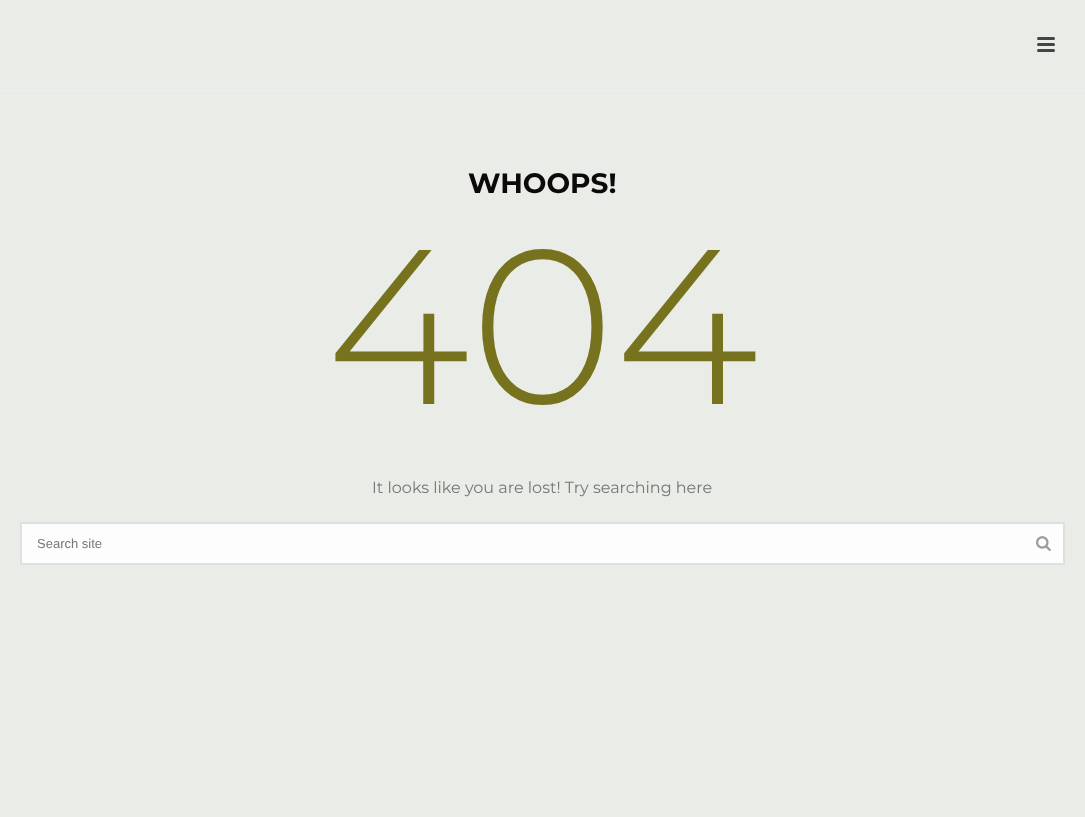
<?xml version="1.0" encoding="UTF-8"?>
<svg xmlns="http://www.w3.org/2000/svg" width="1085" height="817">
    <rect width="100%" height="100%" fill="#EAECE7"/>
    <rect x="0" y="90" width="1085" height="2" fill="#EDEDED"/>
    <rect x="1037" y="37" width="18" height="3" rx="1.5" fill="#444444"/>
    <rect x="1037" y="43" width="18" height="3" rx="1.5" fill="#444444"/>
    <rect x="1037" y="49" width="18" height="3" rx="1.5" fill="#444444"/>
    <text x="468" y="193" font-family="Montserrat" font-size="28" font-weight="700" fill="#0A0A0A">WHOOPS!</text>
    <text x="326" y="404" font-family="Montserrat" font-size="220" font-weight="300" fill="#76721D">404</text>
    <text x="372" y="493" font-family="Montserrat" font-size="16" fill="#777777">It looks like you are lost! Try searching here</text>
    <rect x="21" y="523" width="1043" height="41" fill="#FDFDFD" stroke="#DFDFDF" stroke-width="2"/>
    <text x="37" y="548" font-family="Liberation Sans" font-size="13" fill="#777777">Search site</text>
    <image x="1036" y="536" width="15" height="15" href="img_01.png"/>
</svg>
